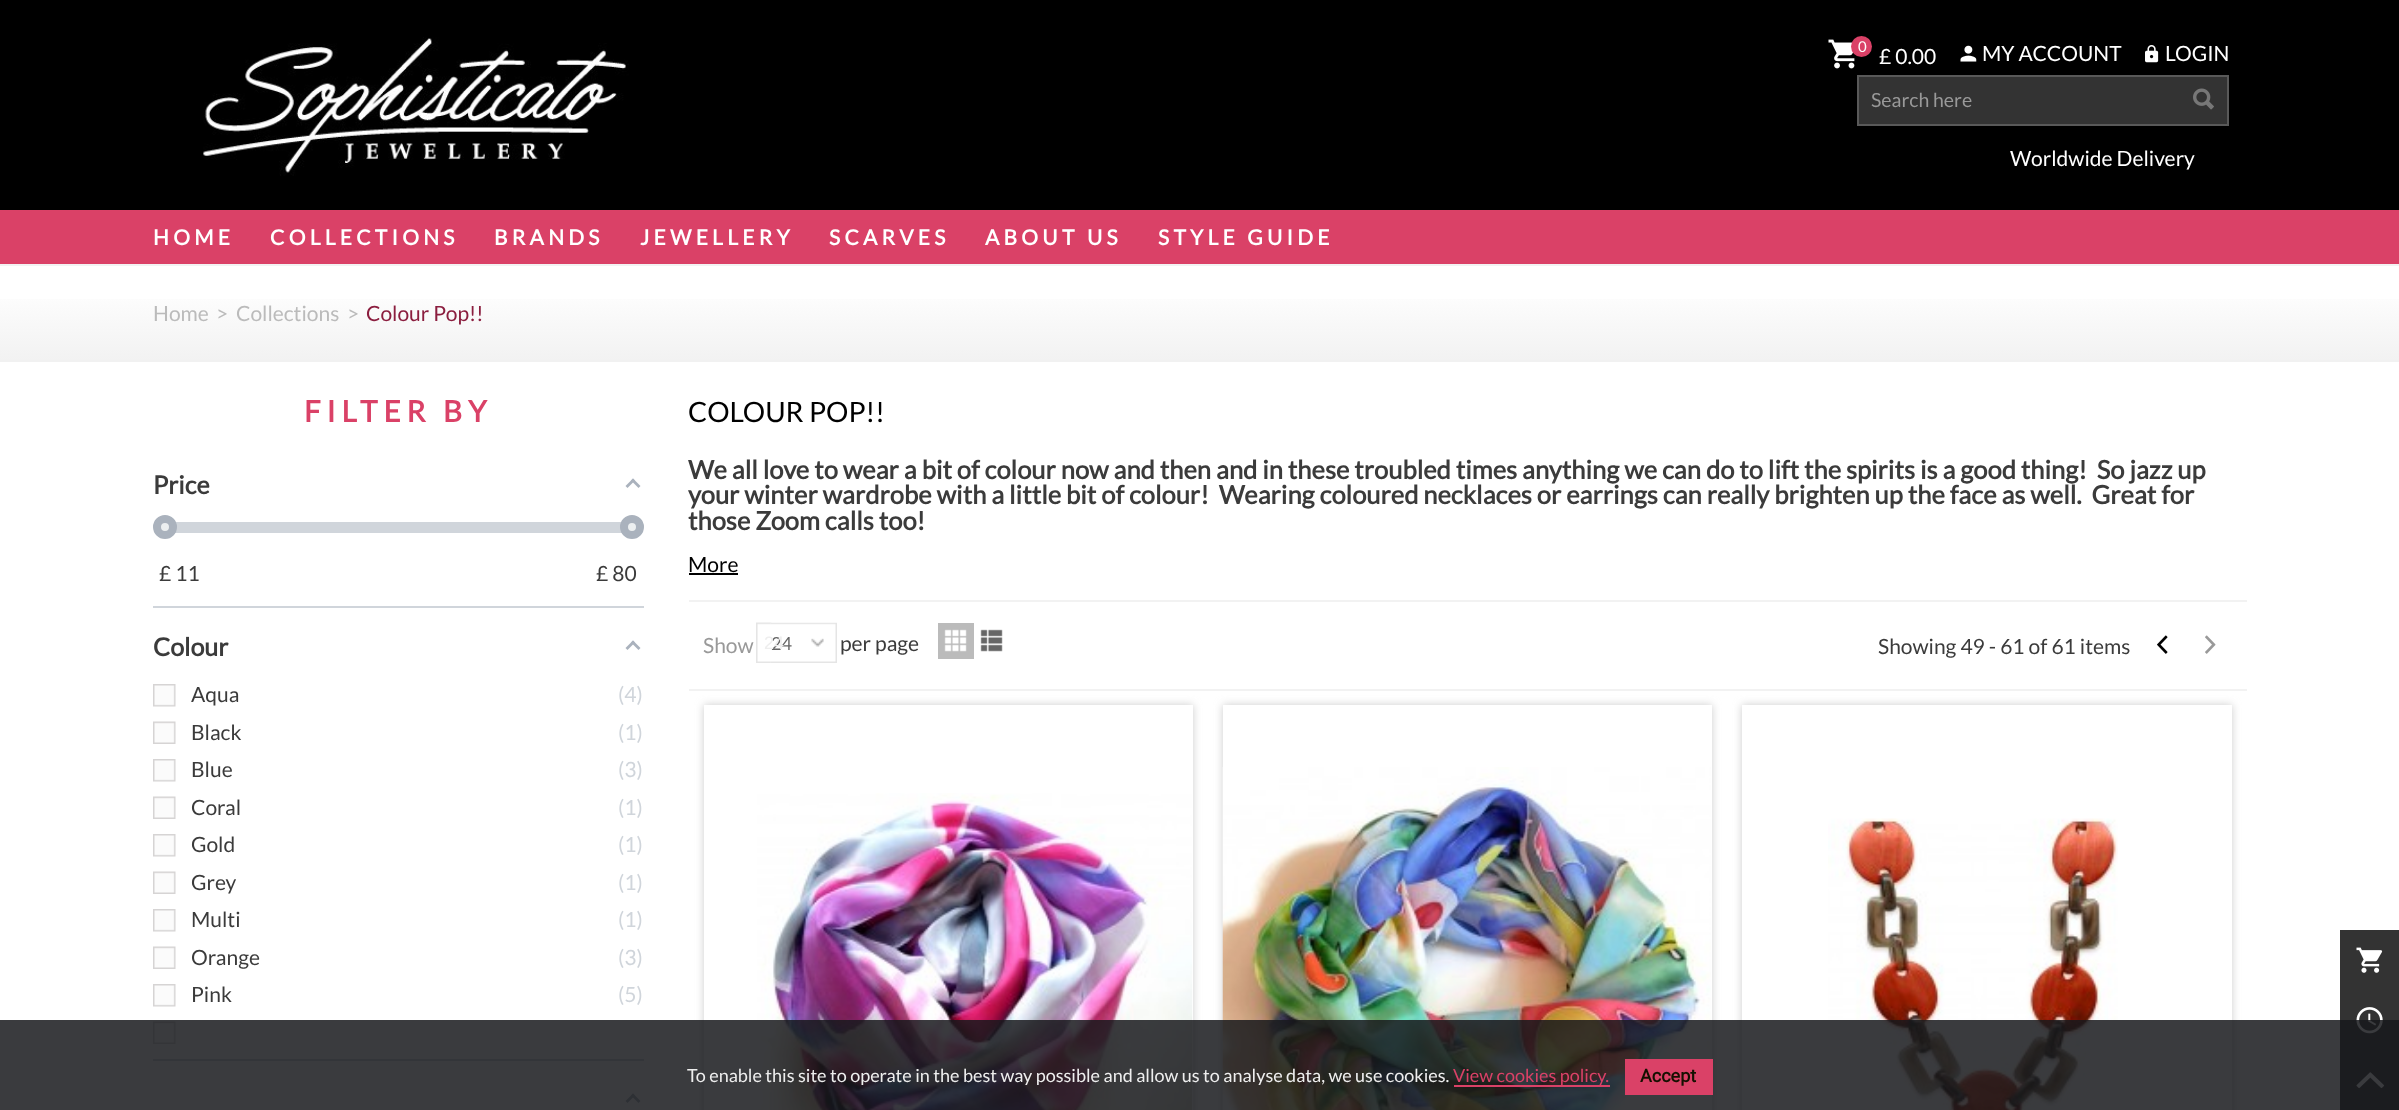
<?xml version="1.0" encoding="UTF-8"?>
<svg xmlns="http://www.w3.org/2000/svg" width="2399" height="1110">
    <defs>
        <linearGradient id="g1" gradientUnits="userSpaceOnUse" x1="1200" y1="171" x2="1200" y2="266"><stop offset="0.2" stop-color="#FFFFFF"/><stop offset="1" stop-color="#F2F2F2"/></linearGradient>
        <linearGradient id="g2" gradientUnits="userSpaceOnUse" x1="1200" y1="265" x2="1200" y2="360"><stop offset="0.2" stop-color="#FFFFFF"/><stop offset="1" stop-color="#F2F2F2"/></linearGradient>
        <clipPath id="clip1"><path d="M 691 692 H 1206 V 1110 H 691 Z M 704 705 H 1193 V 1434 H 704 Z" clip-rule="evenodd"/></clipPath>
        <filter id="blur1" x="-50%" y="-200%" width="200%" height="500%"><feGaussianBlur stdDeviation="4"/></filter>
        <clipPath id="clip2"><path d="M 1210 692 H 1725 V 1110 H 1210 Z M 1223 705 H 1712 V 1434 H 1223 Z" clip-rule="evenodd"/></clipPath>
        <clipPath id="clip3"><path d="M 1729 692 H 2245 V 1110 H 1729 Z M 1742 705 H 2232 V 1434 H 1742 Z" clip-rule="evenodd"/></clipPath>
    </defs>
    <rect width="100%" height="100%" fill="#FFFFFF"/>
    <rect x="0" y="0" width="2399" height="210" fill="#000000"/>
    <image x="203" y="37" width="426" height="139" href="img_01.png"/>
    <image x="1828" y="39" width="27" height="30" href="img_02.png"/>
    <circle cx="1861.5" cy="46.5" r="10.5" fill="#DA4167"/>
    <text x="1858" y="52" font-family="Lato" font-size="15" fill="#FFFFFF">0</text>
    <text x="1879" y="64" font-family="Lato" font-size="21" fill="#FFFFFF">£ 0.00</text>
    <image x="1960" y="45" width="17" height="17" href="img_03.png"/>
    <text x="1982" y="61" font-family="Lato" font-size="21" fill="#FFFFFF">MY ACCOUNT</text>
    <image x="2145" y="45" width="14" height="18" href="img_04.png"/>
    <text x="2165" y="61" font-family="Lato" font-size="21" fill="#FFFFFF">LOGIN</text>
    <rect x="1858" y="76" width="370" height="49" fill="#333333" stroke="#595959" stroke-width="2"/>
    <text x="1871" y="107" font-family="Lato" font-size="19.5" fill="#999999">Search here</text>
    <image x="2193" y="88" width="21" height="22" href="img_05.png"/>
    <text x="2010" y="166" font-family="Lato" font-size="21" fill="#FFFFFF">Worldwide Delivery</text>
    <rect x="0" y="210" width="2399" height="54" fill="#DA4167"/>
    <text x="153" y="245" font-family="Lato" font-size="21" font-weight="700" letter-spacing="4.25" fill="#FFFFFF">HOME</text>
    <text x="270" y="245" font-family="Lato" font-size="21" font-weight="700" letter-spacing="4.25" fill="#FFFFFF">COLLECTIONS</text>
    <text x="494" y="245" font-family="Lato" font-size="21" font-weight="700" letter-spacing="4.25" fill="#FFFFFF">BRANDS</text>
    <text x="640" y="245" font-family="Lato" font-size="21" font-weight="700" letter-spacing="4.25" fill="#FFFFFF">JEWELLERY</text>
    <text x="829" y="245" font-family="Lato" font-size="21" font-weight="700" letter-spacing="4.25" fill="#FFFFFF">SCARVES</text>
    <text x="985" y="245" font-family="Lato" font-size="21" font-weight="700" letter-spacing="4.25" fill="#FFFFFF">ABOUT US</text>
    <text x="1158" y="245" font-family="Lato" font-size="21" font-weight="700" letter-spacing="4.25" fill="#FFFFFF">STYLE GUIDE</text>
    <rect x="0" y="264" width="2399" height="2" fill="url(#g1)"/>
    <rect x="0" y="299" width="2399" height="61" fill="url(#g2)"/>
    <rect x="0" y="360" width="2399" height="2" fill="#F1F1F1"/>
    <text x="153" y="321" font-family="Lato" font-size="21" fill="#BBBBBB">Home</text>
    <text x="216" y="321" font-family="Lato" font-size="21" fill="#BBBBBB">&gt;</text>
    <text x="236" y="321" font-family="Lato" font-size="21" fill="#BBBBBB">Collections</text>
    <text x="347" y="321" font-family="Lato" font-size="21" fill="#BBBBBB">&gt;</text>
    <text x="366" y="321" font-family="Lato" font-size="21" fill="#8B1E3F">Colour Pop!!</text>
    <text x="304" y="422" font-family="Lato" font-size="29.5" font-weight="700" letter-spacing="5.9" fill="#DA4167">FILTER BY</text>
    <rect x="153" y="606" width="491" height="2" fill="#D0D5DB"/>
    <text x="153" y="494" font-family="Lato" font-size="25" font-weight="700" fill="#3B3B3B">Price</text>
    <path d="M 633 478.5 L 640.5 486 L 638.5 488 L 631 480.5 Z" fill="#AAB2BD"/>
    <path d="M 633 478.5 L 635 480.5 L 627.5 488 L 625.5 486 Z" fill="#AAB2BD"/>
    <rect x="175" y="522" width="447" height="11" fill="#D0D5DB"/>
    <circle cx="165" cy="527" r="8" fill="#ECEFF0" stroke="#AAB2BD" stroke-width="8"/>
    <circle cx="632" cy="527" r="8" fill="#ECEFF0" stroke="#AAB2BD" stroke-width="8"/>
    <text x="159" y="581" font-family="Lato" font-size="21" fill="#3B3B3B">£ 11</text>
    <text x="596" y="581" font-family="Lato" font-size="21" fill="#3B3B3B">£ 80</text>
    <rect x="153" y="1059" width="491" height="2" fill="#D0D5DB"/>
    <text x="153" y="656" font-family="Lato" font-size="25" font-weight="700" fill="#3B3B3B">Colour</text>
    <path d="M 633 640.5 L 640.5 648 L 638.5 650 L 631 642.5 Z" fill="#AAB2BD"/>
    <path d="M 633 640.5 L 635 642.5 L 627.5 650 L 625.5 648 Z" fill="#AAB2BD"/>
    <image x="153" y="684" width="23" height="23" href="img_06.png"/>
    <text x="191" y="702" font-family="Lato" font-size="21" fill="#3B3B3B">Aqua</text>
    <text x="618" y="702" font-family="Lato" font-size="21" fill="#D0D5DB">(4)</text>
    <image x="153" y="721" width="23" height="23" href="img_07.png"/>
    <text x="191" y="740" font-family="Lato" font-size="21" fill="#3B3B3B">Black</text>
    <text x="618" y="740" font-family="Lato" font-size="21" fill="#D0D5DB">(1)</text>
    <image x="153" y="759" width="23" height="23" href="img_06.png"/>
    <text x="191" y="777" font-family="Lato" font-size="21" fill="#3B3B3B">Blue</text>
    <text x="618" y="777" font-family="Lato" font-size="21" fill="#D0D5DB">(3)</text>
    <image x="153" y="796" width="23" height="23" href="img_07.png"/>
    <text x="191" y="815" font-family="Lato" font-size="21" fill="#3B3B3B">Coral</text>
    <text x="618" y="815" font-family="Lato" font-size="21" fill="#D0D5DB">(1)</text>
    <image x="153" y="834" width="23" height="23" href="img_06.png"/>
    <text x="191" y="852" font-family="Lato" font-size="21" fill="#3B3B3B">Gold</text>
    <text x="618" y="852" font-family="Lato" font-size="21" fill="#D0D5DB">(1)</text>
    <image x="153" y="871" width="23" height="23" href="img_07.png"/>
    <text x="191" y="890" font-family="Lato" font-size="21" fill="#3B3B3B">Grey</text>
    <text x="618" y="890" font-family="Lato" font-size="21" fill="#D0D5DB">(1)</text>
    <image x="153" y="909" width="23" height="23" href="img_06.png"/>
    <text x="191" y="927" font-family="Lato" font-size="21" fill="#3B3B3B">Multi</text>
    <text x="618" y="927" font-family="Lato" font-size="21" fill="#D0D5DB">(1)</text>
    <image x="153" y="946" width="23" height="23" href="img_07.png"/>
    <text x="191" y="965" font-family="Lato" font-size="21" fill="#3B3B3B">Orange</text>
    <text x="618" y="965" font-family="Lato" font-size="21" fill="#D0D5DB">(3)</text>
    <image x="153" y="984" width="23" height="23" href="img_06.png"/>
    <text x="191" y="1002" font-family="Lato" font-size="21" fill="#3B3B3B">Pink</text>
    <text x="618" y="1002" font-family="Lato" font-size="21" fill="#D0D5DB">(5)</text>
    <image x="153" y="1021" width="23" height="23" href="img_07.png"/>
    <path d="M 633 1093.5 L 640.5 1101 L 638.5 1103 L 631 1095.5 Z" fill="#AAB2BD"/>
    <path d="M 633 1093.5 L 635 1095.5 L 627.5 1103 L 625.5 1101 Z" fill="#AAB2BD"/>
    <text x="688" y="422" font-family="Lato" font-size="28" fill="#000000">COLOUR POP!!</text>
    <text font-family="Lato" font-size="25.5" font-weight="700" fill="#3B3B3B" xml:space="preserve"><tspan x="688" y="479">We all love to wear a bit of colour now and then and in these troubled times anything we can do to lift the spirits is a good thing!  So jazz up</tspan><tspan x="688" y="504">your winter wardrobe with a little bit of colour!  Wearing coloured necklaces or earrings can really brighten up the face as well.  Great for</tspan><tspan x="688" y="530">those Zoom calls too!</tspan></text>
    <text x="688" y="572" font-family="Lato" font-size="21" fill="#000000">More</text>
    <rect x="689" y="573" width="49" height="2" fill="#000000"/>
    <rect x="689" y="600" width="1558" height="2" fill="#F2F2F2"/>
    <rect x="689" y="689" width="1558" height="2" fill="#F2F2F2"/>
    <text x="703" y="653" font-family="Lato" font-size="21" fill="#999999">Show</text>
    <image x="756" y="622" width="16" height="41" href="img_08.png"/>
    <image x="771" y="622" width="66" height="41" href="img_09.png"/>
    <text x="771" y="650" font-family="Lato" font-size="18" fill="#666666">24</text>
    <text x="764" y="649" font-family="Liberation Sans" font-size="18" fill="#EEEEEE">24</text>
    <text x="840" y="651" font-family="Lato" font-size="21" fill="#3B3B3B">per page</text>
    <rect x="938" y="623" width="36" height="36" fill="#BBBBBB"/>
    <image x="944" y="629" width="23" height="23" href="img_10.png"/>
    <image x="980" y="629" width="23" height="23" href="img_11.png"/>
    <text x="1878" y="654" font-family="Lato" font-size="21" fill="#3B3B3B">Showing 49 - 61 of 61 items</text>
    <image x="2157" y="635" width="11" height="19" href="img_12.png"/>
    <image x="2205" y="635" width="11" height="19" href="img_13.png"/>
    <g clip-path="url(#clip1)">
        <rect x="704" y="705" width="489" height="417" fill="#CCCCCC" filter="url(#blur1)"/>
    </g>
    <image x="757" y="793" width="436" height="317" href="img_14.png"/>
    <g clip-path="url(#clip2)">
        <rect x="1223" y="705" width="489" height="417" fill="#CCCCCC" filter="url(#blur1)"/>
    </g>
    <image x="1222" y="767" width="489" height="343" href="img_15.png"/>
    <g clip-path="url(#clip3)">
        <rect x="1742" y="705" width="490" height="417" fill="#CCCCCC" filter="url(#blur1)"/>
    </g>
    <image x="1828" y="818" width="290" height="292" href="img_16.png"/>
    <rect x="2340" y="930" width="59" height="180" fill="#333333"/>
    <image x="2356" y="947" width="27" height="26" href="img_17.png"/>
    <image x="2356" y="1007" width="27" height="27" href="img_18.png"/>
    <image x="2356" y="1072" width="29" height="17" href="img_19.png"/>
    <rect x="0" y="1020" width="2399" height="90" fill="#17191C" fill-opacity="0.85"/>
    <text x="687" y="1082" font-family="Lato" font-size="18" fill="#EEEEEE">To enable this site to operate in the best way possible and allow us to analyse data, we use cookies.</text>
    <rect x="1454" y="1085" width="156" height="2" fill="#DA4167"/>
    <text x="1453" y="1082" font-family="Lato" font-size="18" fill="#DA4167">View cookies policy.</text>
    <rect x="1625" y="1059" width="88" height="36" fill="#DA4167"/>
    <text x="1640" y="1082" font-family="Roboto" font-size="18" font-weight="700" fill="#151000">Accept</text>
</svg>
